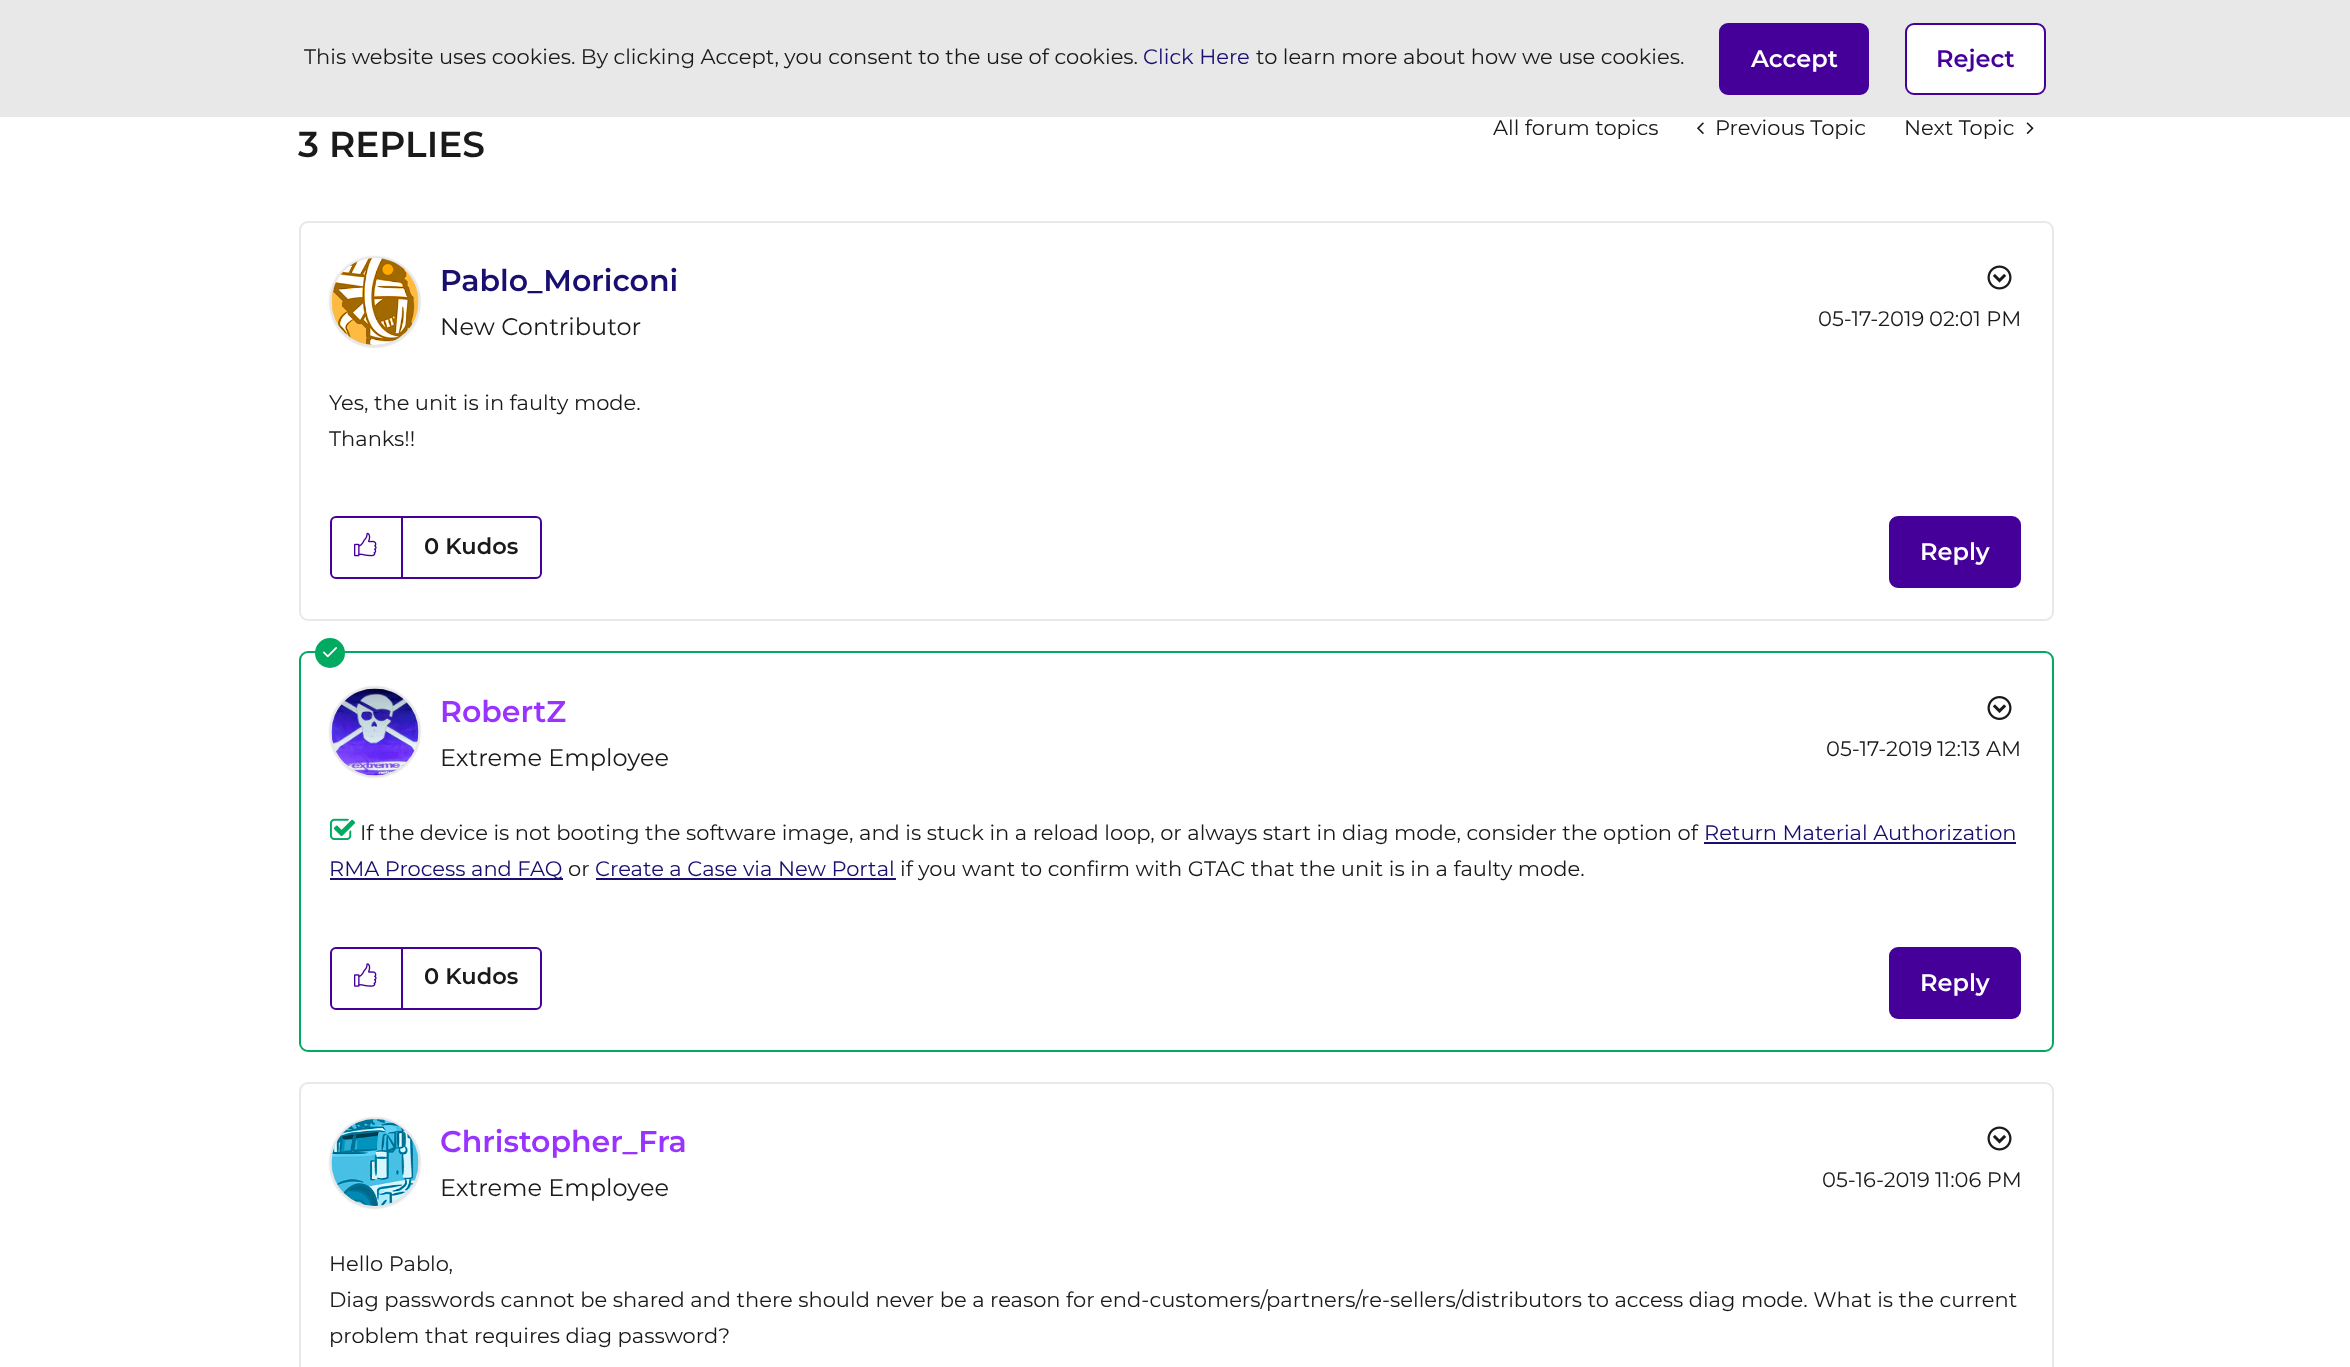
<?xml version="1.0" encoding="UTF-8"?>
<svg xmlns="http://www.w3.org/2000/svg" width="2350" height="1367">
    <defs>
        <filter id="blur1" x="-50%" y="-200%" width="200%" height="500%"><feGaussianBlur stdDeviation="1"/></filter>
    </defs>
    <rect width="100%" height="100%" fill="#FFFFFF"/>
    <rect x="0" y="0" width="2350" height="117" fill="#E8E8E8"/>
    <text x="304" y="64" font-family="'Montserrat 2'" font-size="21" font-weight="100" fill="#1A1A1A">This website uses cookies. By clicking Accept, you consent to the use of cookies.</text>
    <text x="1143" y="64" font-family="'Montserrat 2'" font-size="21" font-weight="100" fill="#190F71">Click Here</text>
    <text x="1256" y="64" font-family="'Montserrat 2'" font-size="21" font-weight="100" fill="#1A1A1A">to learn more about how we use cookies.</text>
    <rect x="1720" y="24" width="148" height="70" rx="8" fill="#440099" stroke="#440099" stroke-width="2"/>
    <text x="1751" y="67" font-family="Montserrat" font-size="24" font-weight="100" fill="#FFFFFF">Accept</text>
    <rect x="1906" y="24" width="139" height="70" rx="8" fill="#FFFFFF" stroke="#440099" stroke-width="2"/>
    <text x="1936" y="67" font-family="Montserrat" font-size="24" font-weight="100" fill="#440099">Reject</text>
    <text x="298" y="157" font-family="Montserrat" font-size="36" font-weight="100" fill="#1A1A1A">3 REPLIES</text>
    <text x="1493" y="135" font-family="'Montserrat 2'" font-size="21" font-weight="100" fill="#1A1A1A">All forum topics</text>
    <image x="1697" y="122" width="7" height="12" href="img_01.png"/>
    <text x="1715" y="135" font-family="'Montserrat 2'" font-size="21" font-weight="100" fill="#1A1A1A">Previous Topic</text>
    <text x="1904" y="135" font-family="'Montserrat 2'" font-size="21" font-weight="100" fill="#1A1A1A">Next Topic</text>
    <image x="2026" y="122" width="8" height="12" href="img_02.png"/>
    <rect x="300" y="222" width="1753" height="398" rx="8" fill="none" stroke="#E8E8E8" stroke-width="2"/>
    <rect x="330" y="257" width="90" height="90" rx="45" fill="#C4C4C4" filter="url(#blur1)"/>
    <circle cx="375" cy="302" r="44" fill="none" stroke="#E8E8E8" stroke-width="2"/>
    <image x="331" y="258" width="88" height="87" href="img_03.png"/>
    <text x="440" y="291" font-family="Montserrat" font-size="30" font-weight="100" fill="#190F71">Pablo_Moriconi</text>
    <text x="440" y="335" font-family="'Montserrat 2'" font-size="24" font-weight="100" fill="#1A1A1A">New Contributor</text>
    <image x="1987" y="265" width="25" height="25" href="img_04.png"/>
    <text x="1818" y="326" font-family="'Montserrat 2'" font-size="21" font-weight="100" fill="#1A1A1A">05-17-2019</text>
    <text x="1929" y="326" font-family="'Montserrat 2'" font-size="21" font-weight="100" fill="#1A1A1A">02:01 PM</text>
    <text font-family="'Montserrat 2'" font-size="21" font-weight="100" fill="#1A1A1A">
        <tspan x="329" y="410">Yes, the unit is in faulty mode.</tspan>
        <tspan x="329" y="446">Thanks!!</tspan>
    </text>
    <rect x="331" y="517" width="210" height="61" rx="5" fill="none" stroke="#440099" stroke-width="2"/>
    <rect x="401" y="518" width="2" height="60" fill="#440099"/>
    <image x="354" y="532" width="23" height="25" href="img_05.png"/>
    <text x="424" y="554" font-family="Montserrat" font-size="22.5" font-weight="100" fill="#1A1A1A">0 Kudos</text>
    <rect x="1890" y="517" width="130" height="70" rx="8" fill="#440099" stroke="#440099" stroke-width="2"/>
    <text x="1920" y="560" font-family="Montserrat" font-size="24" font-weight="100" fill="#FFFFFF">Reply</text>
    <rect x="300" y="652" width="1753" height="399" rx="8" fill="none" stroke="#00AA60" stroke-width="2"/>
    <circle cx="330" cy="653" r="15" fill="#00AA60"/>
    <image x="323" y="647" width="14" height="11" href="img_06.png"/>
    <rect x="330" y="687" width="90" height="90" rx="45" fill="#C4C4C4" filter="url(#blur1)"/>
    <circle cx="375" cy="732" r="44" fill="none" stroke="#E8E8E8" stroke-width="2"/>
    <image x="331" y="688" width="88" height="88" href="img_07.png"/>
    <text x="440" y="722" font-family="Montserrat" font-size="30" font-weight="100" fill="#9933FF">RobertZ</text>
    <text x="440" y="766" font-family="'Montserrat 2'" font-size="24" font-weight="100" fill="#1A1A1A">Extreme Employee</text>
    <image x="1987" y="696" width="25" height="24" href="img_08.png"/>
    <text x="1826" y="756" font-family="'Montserrat 2'" font-size="21" font-weight="100" fill="#1A1A1A">05-17-2019</text>
    <text x="1937" y="756" font-family="'Montserrat 2'" font-size="21" font-weight="100" fill="#1A1A1A">12:13 AM</text>
    <image x="330" y="818" width="25" height="22" href="img_09.png"/>
    <text x="360" y="840" font-family="'Montserrat 2'" font-size="21" font-weight="100" fill="#1A1A1A">If the device is not booting the software image, and is stuck in a reload loop, or always start in diag mode, consider the option of</text>
    <text x="1704" y="840" font-family="'Montserrat 2'" font-size="21" font-weight="100" fill="#190F71">Return Material Authorization</text>
    <rect x="1704" y="842" width="312" height="2" fill="#190F71"/>
    <rect x="330" y="878" width="233" height="2" fill="#190F71"/>
    <text x="329" y="876" font-family="'Montserrat 2'" font-size="21" font-weight="100" fill="#190F71">RMA Process and FAQ</text>
    <text x="568" y="876" font-family="'Montserrat 2'" font-size="21" font-weight="100" fill="#1A1A1A">or</text>
    <text x="595" y="876" font-family="'Montserrat 2'" font-size="21" font-weight="100" fill="#190F71">Create a Case via New Portal</text>
    <rect x="596" y="878" width="300" height="2" fill="#190F71"/>
    <text x="900" y="876" font-family="'Montserrat 2'" font-size="21" font-weight="100" fill="#1A1A1A">if you want to confirm with GTAC that the unit is in a faulty mode.</text>
    <rect x="331" y="948" width="210" height="61" rx="5" fill="none" stroke="#440099" stroke-width="2"/>
    <rect x="401" y="948" width="2" height="60" fill="#440099"/>
    <image x="354" y="963" width="23" height="24" href="img_10.png"/>
    <text x="424" y="984" font-family="Montserrat" font-size="22.5" font-weight="100" fill="#1A1A1A">0 Kudos</text>
    <rect x="1890" y="948" width="130" height="70" rx="8" fill="#440099" stroke="#440099" stroke-width="2"/>
    <text x="1920" y="991" font-family="Montserrat" font-size="24" font-weight="100" fill="#FFFFFF">Reply</text>
    <rect x="300" y="1083" width="1753" height="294" rx="8" fill="none" stroke="#E8E8E8" stroke-width="2"/>
    <rect x="330" y="1118" width="90" height="90" rx="45" fill="#C4C4C4" filter="url(#blur1)"/>
    <circle cx="375" cy="1163" r="44" fill="none" stroke="#E8E8E8" stroke-width="2"/>
    <image x="331" y="1119" width="88" height="87" href="img_11.png"/>
    <text x="440" y="1152" font-family="Montserrat" font-size="30" font-weight="100" fill="#9933FF">Christopher_Fra</text>
    <text x="440" y="1196" font-family="'Montserrat 2'" font-size="24" font-weight="100" fill="#1A1A1A">Extreme Employee</text>
    <image x="1987" y="1126" width="25" height="25" href="img_04.png"/>
    <text x="1822" y="1187" font-family="'Montserrat 2'" font-size="21" font-weight="100" fill="#1A1A1A">05-16-2019</text>
    <text x="1935" y="1187" font-family="'Montserrat 2'" font-size="21" font-weight="100" fill="#1A1A1A">11:06 PM</text>
    <text font-family="'Montserrat 2'" font-size="21" font-weight="100" fill="#1A1A1A">
        <tspan x="329" y="1271">Hello Pablo,</tspan>
        <tspan x="329" y="1307">Diag passwords cannot be shared and there should never be a reason for end-customers/partners/re-sellers/distributors to access diag mode. What is the current</tspan>
        <tspan x="329" y="1343">problem that requires diag password?</tspan>
    </text>
</svg>
